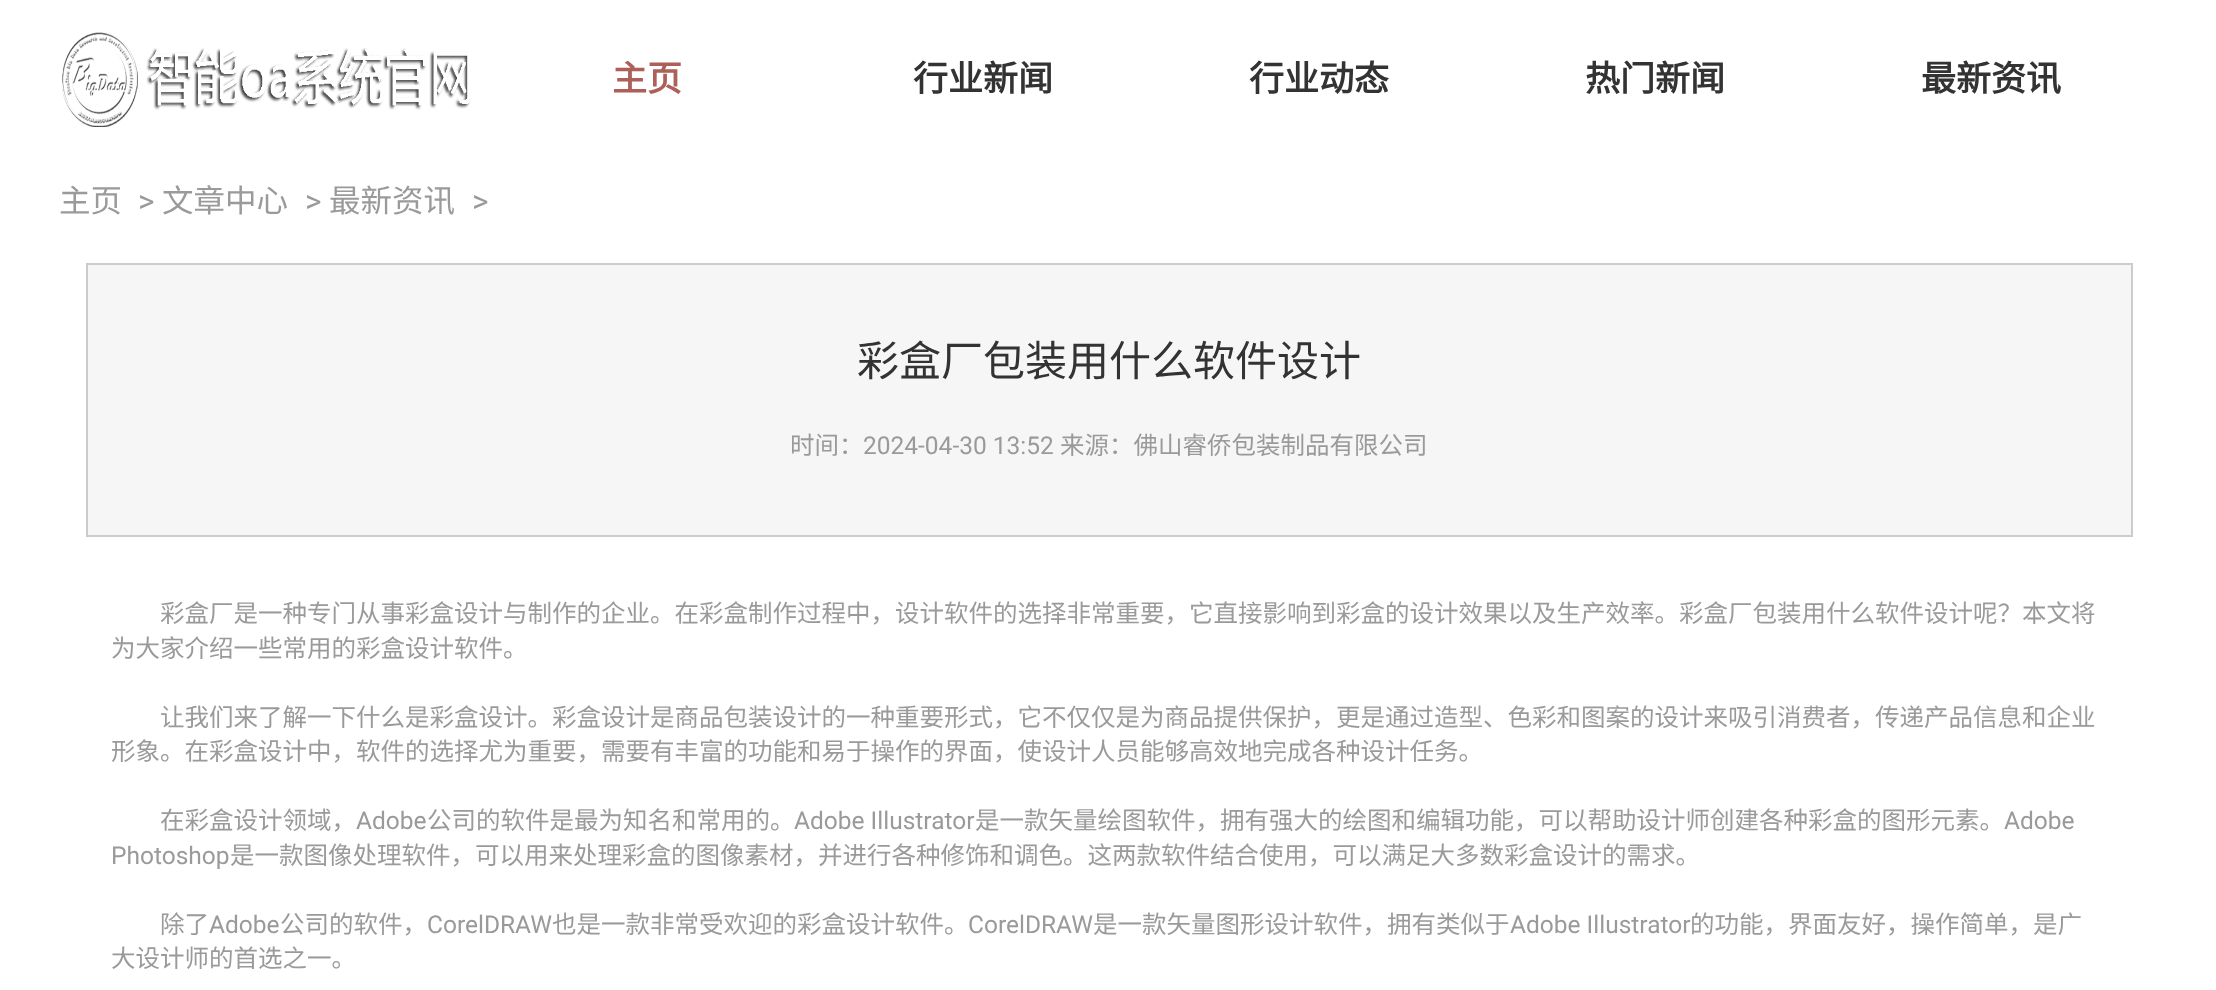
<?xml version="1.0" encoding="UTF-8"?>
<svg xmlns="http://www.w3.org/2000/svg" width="2216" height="990">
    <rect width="100%" height="100%" fill="#FFFFFF"/>
    <image x="62" y="32" width="408" height="95" href="img_01.png"/>
    <text x="612" y="91" font-family="Noto Sans CJK SC" font-size="35" font-weight="700" fill="#AC6058">主页</text>
    <text x="913" y="91" font-family="Noto Sans CJK SC" font-size="35" font-weight="700" fill="#333333">行业新闻</text>
    <text x="1249" y="91" font-family="Noto Sans CJK SC" font-size="35" font-weight="700" fill="#333333">行业动态</text>
    <text x="1585" y="91" font-family="Noto Sans CJK SC" font-size="35" font-weight="700" fill="#333333">热门新闻</text>
    <text x="1921" y="91" font-family="Noto Sans CJK SC" font-size="35" font-weight="700" fill="#333333">最新资讯</text>
    <text x="59" y="212" font-family="Noto Sans CJK SC" font-size="31.5" fill="#9A9A9A">主页</text>
    <text x="138" y="212" font-family="Roboto" font-size="31.5" fill="#9A9A9A">&gt;</text>
    <text x="162" y="212" font-family="Noto Sans CJK SC" font-size="31.5" fill="#9A9A9A">文章中心</text>
    <text x="305" y="212" font-family="Roboto" font-size="31.5" fill="#9A9A9A">&gt;</text>
    <text x="329" y="212" font-family="Noto Sans CJK SC" font-size="31.5" fill="#9A9A9A">最新资讯</text>
    <text x="472" y="212" font-family="Roboto" font-size="31.5" fill="#9A9A9A">&gt;</text>
    <rect x="87" y="264" width="2045" height="272" fill="#F6F6F6" stroke="#CCCCCC" stroke-width="2"/>
    <text x="857" y="376" font-family="Noto Sans CJK SC" font-size="42" fill="#333333">彩盒厂包装用什么软件设计</text>
    <text x="790" y="454" font-family="Noto Sans CJK SC" font-size="24.5" fill="#9A9A9A">时间：</text>
    <text x="863" y="454" font-family="Roboto" font-size="24.5" fill="#9A9A9A">2024-04-30 13:52</text>
    <text x="1060" y="454" font-family="Noto Sans CJK SC" font-size="24.5" fill="#9A9A9A">来源：佛山睿侨包装制品有限公司</text>
    <text x="160" y="622" font-family="Noto Sans CJK SC" font-size="24.5" fill="#9A9A9A">彩盒厂是一种专门从事彩盒设计与制作的企业。在彩盒制作过程中，设计软件的选择非常重要，它直接影响到彩盒的设计效果以及生产效率。彩盒厂包装用什么软件设计呢？本文将</text>
    <text x="111" y="657" font-family="Noto Sans CJK SC" font-size="24.5" fill="#9A9A9A">为大家介绍一些常用的彩盒设计软件。</text>
    <text x="160" y="726" font-family="Noto Sans CJK SC" font-size="24.5" fill="#9A9A9A">让我们来了解一下什么是彩盒设计。彩盒设计是商品包装设计的一种重要形式，它不仅仅是为商品提供保护，更是通过造型、色彩和图案的设计来吸引消费者，传递产品信息和企业</text>
    <text x="111" y="760" font-family="Noto Sans CJK SC" font-size="24.5" fill="#9A9A9A">形象。在彩盒设计中，软件的选择尤为重要，需要有丰富的功能和易于操作的界面，使设计人员能够高效地完成各种设计任务。</text>
    <text x="160" y="829" font-family="Noto Sans CJK SC" font-size="24.5" fill="#9A9A9A">在彩盒设计领域，</text>
    <text x="356" y="829" font-family="Roboto" font-size="24.5" fill="#9A9A9A">Adobe</text>
    <text x="427" y="829" font-family="Noto Sans CJK SC" font-size="24.5" fill="#9A9A9A">公司的软件是最为知名和常用的。</text>
    <text x="794" y="829" font-family="Roboto" font-size="24.5" fill="#9A9A9A">Adobe Illustrator</text>
    <text x="975" y="829" font-family="Noto Sans CJK SC" font-size="24.5" fill="#9A9A9A">是一款矢量绘图软件，拥有强大的绘图和编辑功能，可以帮助设计师创建各种彩盒的图形元素。</text>
    <text x="2004" y="829" font-family="Roboto" font-size="24.5" fill="#9A9A9A">Adobe</text>
    <text x="111" y="864" font-family="Roboto" font-size="24.5" fill="#9A9A9A">Photoshop</text>
    <text x="230" y="864" font-family="Noto Sans CJK SC" font-size="24.5" fill="#9A9A9A">是一款图像处理软件，可以用来处理彩盒的图像素材，并进行各种修饰和调色。这两款软件结合使用，可以满足大多数彩盒设计的需求。</text>
    <text x="160" y="933" font-family="Noto Sans CJK SC" font-size="24.5" fill="#9A9A9A">除了</text>
    <text x="209" y="933" font-family="Roboto" font-size="24.5" fill="#9A9A9A">Adobe</text>
    <text x="280" y="933" font-family="Noto Sans CJK SC" font-size="24.5" fill="#9A9A9A">公司的软件，</text>
    <text x="427" y="933" font-family="Roboto" font-size="24.5" fill="#9A9A9A">CorelDRAW</text>
    <text x="552" y="933" font-family="Noto Sans CJK SC" font-size="24.5" fill="#9A9A9A">也是一款非常受欢迎的彩盒设计软件。</text>
    <text x="968" y="933" font-family="Roboto" font-size="24.5" fill="#9A9A9A">CorelDRAW</text>
    <text x="1093" y="933" font-family="Noto Sans CJK SC" font-size="24.5" fill="#9A9A9A">是一款矢量图形设计软件，拥有类似于</text>
    <text x="1510" y="933" font-family="Roboto" font-size="24.5" fill="#9A9A9A">Adobe Illustrator</text>
    <text x="1690" y="933" font-family="Noto Sans CJK SC" font-size="24.5" fill="#9A9A9A">的功能，界面友好，操作简单，是广</text>
    <text x="111" y="967" font-family="Noto Sans CJK SC" font-size="24.5" fill="#9A9A9A">大设计师的首选之一。</text>
</svg>
